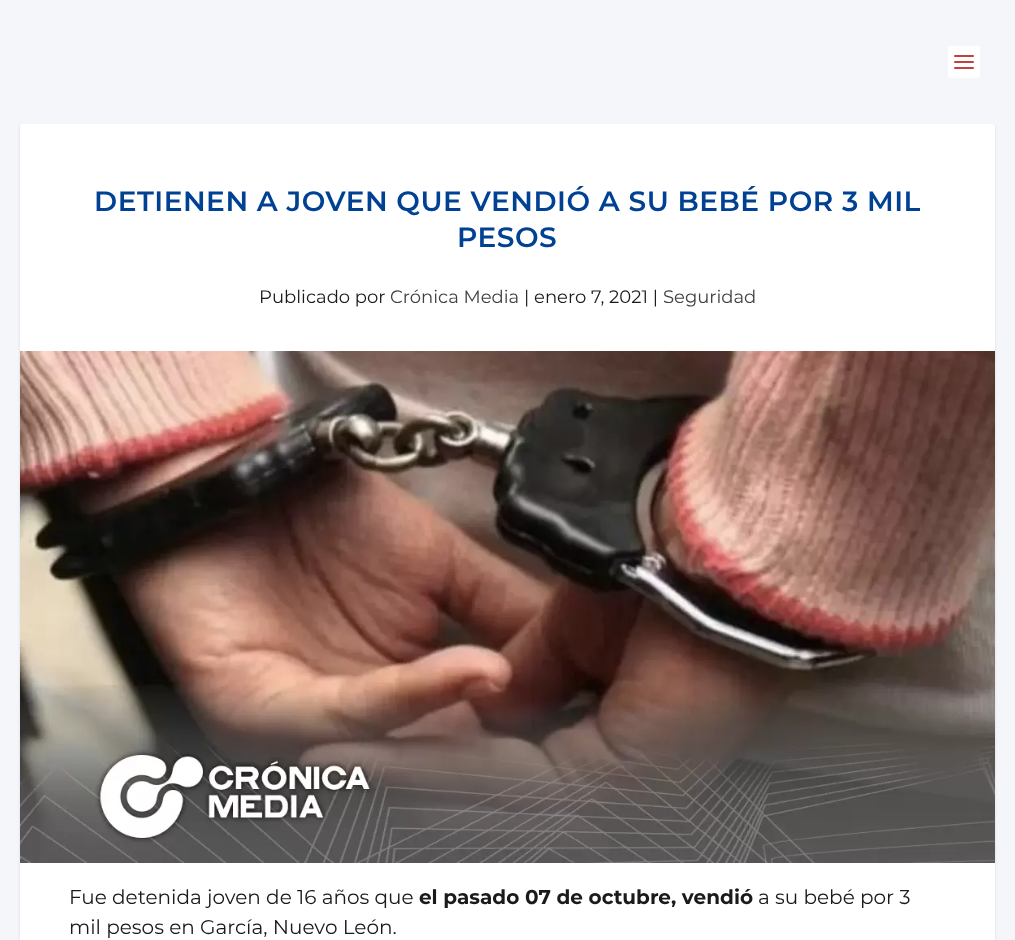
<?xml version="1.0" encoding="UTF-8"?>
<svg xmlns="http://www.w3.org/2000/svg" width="1015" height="940">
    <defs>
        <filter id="blur1" x="-50%" y="-200%" width="200%" height="500%"><feGaussianBlur stdDeviation="1.5"/></filter>
    </defs>
    <rect width="100%" height="100%" fill="#F4F6F9"/>
    <rect x="20" y="125" width="975" height="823" rx="3" fill="#000000" fill-opacity="0.1" filter="url(#blur1)"/>
    <rect x="22" y="123" width="971" height="1" fill="#F4F6F9"/>
    <rect x="948" y="46" width="32" height="32" rx="3" fill="#FFFFFF"/>
    <rect x="954" y="55" width="20" height="2" rx="1" fill="#C43F3D"/>
    <rect x="954" y="61" width="20" height="2" rx="1" fill="#C43F3D"/>
    <rect x="954" y="67" width="20" height="2" rx="1" fill="#C43F3D"/>
    <rect x="20" y="124" width="975" height="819" rx="3" fill="#FFFFFF"/>
    <text x="94" y="211" font-family="Montserrat" font-size="28" font-weight="600" letter-spacing="0.5" fill="#014194">DETIENEN A JOVEN QUE VENDIÓ A SU BEBÉ POR 3 MIL</text>
    <text x="457" y="247" font-family="Montserrat" font-size="28" font-weight="600" letter-spacing="0.5" fill="#014194">PESOS</text>
    <text x="259" y="303" font-family="Montserrat" font-size="18" fill="#191A1B">Publicado por</text>
    <text x="390" y="303" font-family="Montserrat" font-size="18" fill="#404040">Crónica Media</text>
    <text x="524" y="303" font-family="Montserrat" font-size="18" fill="#191A1B">| enero 7, 2021 |</text>
    <text x="663" y="303" font-family="Montserrat" font-size="18" fill="#404040">Seguridad</text>
    <image x="20" y="351" width="975" height="512" href="img_01.png"/>
    <text x="69" y="904" font-family="Montserrat" font-size="20" fill="#191A1B">Fue detenida joven de 16 años que</text>
    <text x="419" y="904" font-family="Montserrat" font-size="20" font-weight="700" fill="#191A1B">el pasado 07 de octubre, vendió</text>
    <text x="758" y="904" font-family="Montserrat" font-size="20" fill="#191A1B">a su bebé por 3</text>
    <text x="69" y="934" font-family="Montserrat" font-size="20" fill="#191A1B">mil pesos en García, Nuevo León.</text>
</svg>
